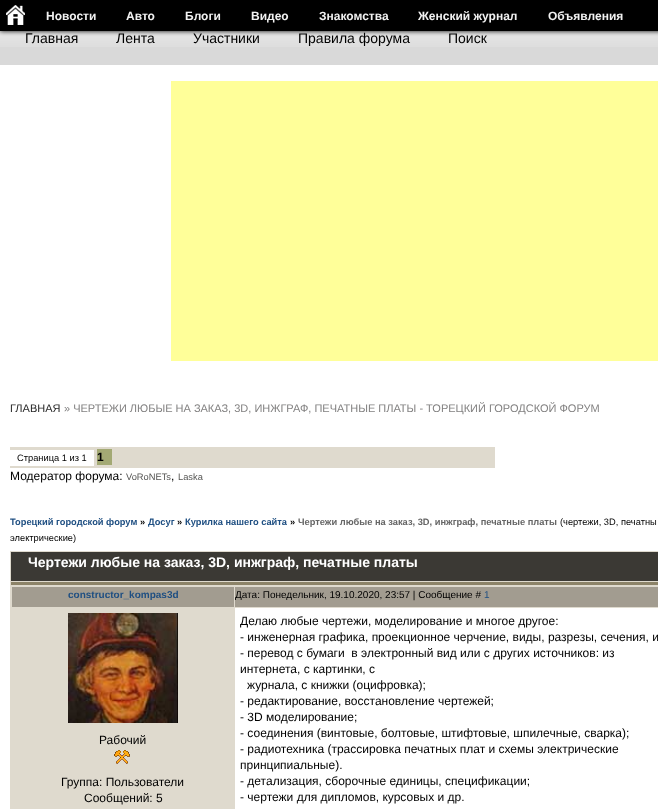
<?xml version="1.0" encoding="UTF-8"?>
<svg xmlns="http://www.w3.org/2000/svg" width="658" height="809">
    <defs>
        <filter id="blur1" x="-50%" y="-200%" width="200%" height="500%"><feGaussianBlur stdDeviation="2.5"/></filter>
    </defs>
    <rect width="100%" height="100%" fill="#FFFFFF"/>
    <image x="0" y="31" width="658" height="16" href="img_02.png"/>
    <rect x="0" y="0" width="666" height="31" fill="#111111" filter="url(#blur1)"/>
    <rect x="0" y="0" width="658" height="31" fill="#000000"/>
    <image x="6" y="5" width="19" height="20" href="img_01.png"/>
    <text x="46" y="20" font-family="Liberation Sans" font-size="12" font-weight="700" fill="#F1F1F1">Новости</text>
    <text x="126" y="20" font-family="Liberation Sans" font-size="12" font-weight="700" fill="#F1F1F1">Авто</text>
    <text x="185" y="20" font-family="Liberation Sans" font-size="12" font-weight="700" fill="#F1F1F1">Блоги</text>
    <text x="251" y="20" font-family="Liberation Sans" font-size="12" font-weight="700" fill="#F1F1F1">Видео</text>
    <text x="319" y="20" font-family="Liberation Sans" font-size="12" font-weight="700" fill="#F1F1F1">Знакомства</text>
    <text x="418" y="20" font-family="Liberation Sans" font-size="12" font-weight="700" fill="#F1F1F1">Женский журнал</text>
    <text x="548" y="20" font-family="Liberation Sans" font-size="12" font-weight="700" fill="#F1F1F1">Объявления</text>
    <rect x="0" y="47" width="658" height="18" fill="#D9D9D9"/>
    <text x="25" y="43" font-family="Liberation Sans" font-size="14" fill="#000000">Главная</text>
    <text x="116" y="43" font-family="Liberation Sans" font-size="14" fill="#000000">Лента</text>
    <text x="193" y="43" font-family="Liberation Sans" font-size="14" fill="#000000">Участники</text>
    <text x="298" y="43" font-family="Liberation Sans" font-size="14" fill="#000000">Правила форума</text>
    <text x="448" y="43" font-family="Liberation Sans" font-size="14" fill="#000000">Поиск</text>
    <rect x="171" y="81" width="487" height="280" fill="#FFFF99"/>
    <text x="10" y="412" font-family="Liberation Sans" font-size="11" fill="#282828">ГЛАВНАЯ</text>
    <text x="64" y="412" font-family="Liberation Sans" font-size="11" fill="#828181">» ЧЕРТЕЖИ ЛЮБЫЕ НА ЗАКАЗ, 3D, ИНЖГРАФ, ПЕЧАТНЫЕ ПЛАТЫ - ТОРЕЦКИЙ ГОРОДСКОЙ ФОРУМ</text>
    <rect x="10" y="447" width="485" height="21" fill="#DFDACE"/>
    <rect x="10" y="450" width="84" height="16" fill="#FFFFFF"/>
    <text x="17" y="461" font-family="Liberation Sans" font-size="9.3" fill="#000000">Страница 1 из 1</text>
    <rect x="97" y="449" width="15" height="16" fill="#A3A974"/>
    <text x="97" y="461" font-family="Liberation Sans" font-size="12" font-weight="700" fill="#000000">1</text>
    <text x="10" y="480" font-family="Liberation Sans" font-size="12" fill="#000000">Модератор форума:</text>
    <text x="126" y="480" font-family="Liberation Sans" font-size="9.3" fill="#535351">VoRoNETs</text>
    <text x="171" y="480" font-family="Liberation Sans" font-size="12" fill="#000000">,</text>
    <text x="178" y="480" font-family="Liberation Sans" font-size="9.3" fill="#535351">Laska</text>
    <text x="10" y="525" font-family="Liberation Sans" font-size="9.3" font-weight="700" fill="#1F4F82">Торецкий городской форум</text>
    <text x="140" y="525" font-family="Liberation Sans" font-size="9.3" font-weight="700" fill="#000000">»</text>
    <text x="148" y="525" font-family="Liberation Sans" font-size="9.3" font-weight="700" fill="#1F4F82">Досуг</text>
    <text x="177" y="525" font-family="Liberation Sans" font-size="9.3" font-weight="700" fill="#000000">»</text>
    <text x="185" y="525" font-family="Liberation Sans" font-size="9.3" font-weight="700" fill="#1F4F82">Курилка нашего сайта</text>
    <text x="290" y="525" font-family="Liberation Sans" font-size="9.3" font-weight="700" fill="#000000">»</text>
    <text x="298" y="525" font-family="Liberation Sans" font-size="9.3" font-weight="700" fill="#666666">Чертежи любые на заказ, 3D, инжграф, печатные платы</text>
    <text x="560" y="525" font-family="Liberation Sans" font-size="9.3" fill="#000000">(чертежи, 3D, печатны</text>
    <text x="10" y="541" font-family="Liberation Sans" font-size="9.3" fill="#000000">электрические)</text>
    <rect x="10" y="551" width="648" height="258" fill="#DFDACE"/>
    <rect x="11" y="552" width="647" height="29" fill="#3B3934"/>
    <text x="28" y="567" font-family="Liberation Sans" font-size="14" font-weight="700" fill="#FFFFFF">Чертежи любые на заказ, 3D, инжграф, печатные платы</text>
    <rect x="11" y="582" width="647" height="3" fill="#8C8368"/>
    <rect x="12" y="587" width="222" height="20" fill="#A29C90"/>
    <text x="68" y="598" font-family="Liberation Sans" font-size="10" font-weight="700" fill="#1F4F82">constructor_kompas3d</text>
    <rect x="235" y="587" width="423" height="20" fill="#A29C90"/>
    <text x="235" y="598" font-family="Liberation Sans" font-size="10" fill="#000000">Дата: Понедельник, 19.10.2020, 23:57 | Сообщение #</text>
    <text x="484" y="598" font-family="Liberation Sans" font-size="10" fill="#1F4F82">1</text>
    <image x="68" y="613" width="110" height="110" href="img_03.png"/>
    <text x="99" y="744" font-family="Liberation Sans" font-size="12" fill="#000000">Рабочий</text>
    <image x="114" y="750" width="16" height="14" href="img_04.png"/>
    <text x="61" y="786" font-family="Liberation Sans" font-size="12" fill="#000000">Группа: Пользователи</text>
    <text x="84" y="802" font-family="Liberation Sans" font-size="12" fill="#000000">Сообщений: 5</text>
    <rect x="235" y="608" width="423" height="201" fill="#FFFFFF"/>
    <text font-family="Liberation Sans" font-size="12" fill="#000000" xml:space="preserve"><tspan x="240" y="625">Делаю любые чертежи, моделирование и многое другое:</tspan><tspan x="240" y="641">- инженерная графика, проекционное черчение, виды, разрезы, сечения, и</tspan><tspan x="240" y="657">- перевод с бумаги  в электронный вид или с других источников: из</tspan><tspan x="240" y="673">интернета, с картинки, с</tspan></text>
    <text x="247" y="689" font-family="Liberation Sans" font-size="12" fill="#000000">журнала, с книжки (оцифровка);</text>
    <text font-family="Liberation Sans" font-size="12" fill="#000000">
        <tspan x="240" y="705">- редактирование, восстановление чертежей;</tspan>
        <tspan x="240" y="721">- 3D моделирование;</tspan>
        <tspan x="240" y="737">- соединения (винтовые, болтовые, штифтовые, шпилечные, сварка);</tspan>
        <tspan x="240" y="753">- радиотехника (трассировка печатных плат и схемы электрические</tspan>
        <tspan x="240" y="769">принципиальные).</tspan>
        <tspan x="240" y="785">- детализация, сборочные единицы, спецификации;</tspan>
        <tspan x="240" y="801">- чертежи для дипломов, курсовых и др.</tspan>
    </text>
</svg>
